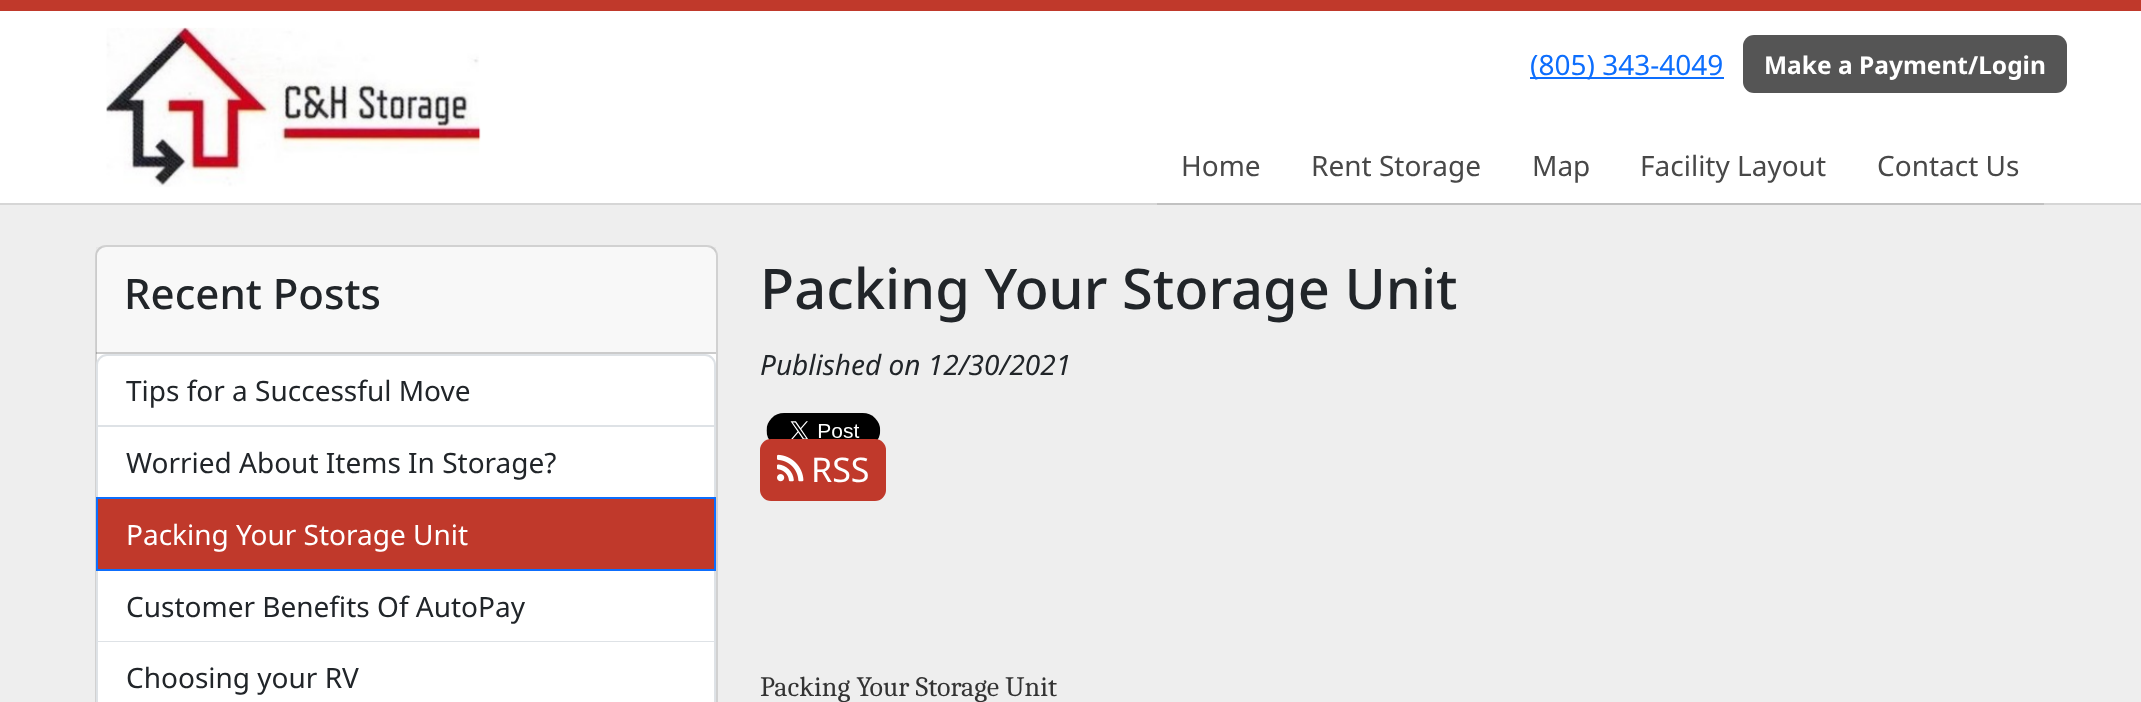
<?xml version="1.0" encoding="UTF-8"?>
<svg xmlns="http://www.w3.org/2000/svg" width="2141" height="702">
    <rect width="100%" height="100%" fill="#EEEEEE"/>
    <rect x="0" y="203" width="2141" height="2" fill="#D6D6D6"/>
    <rect x="0" y="11" width="2141" height="192" fill="#FFFFFF"/>
    <rect x="0" y="0" width="2141" height="11" fill="#C0392B"/>
    <image x="106" y="27" width="375" height="160" href="img_01.png"/>
    <rect x="1530" y="77" width="194" height="2" fill="#0D6EFD"/>
    <text x="1530" y="75" font-family="Noto Sans" font-size="28" fill="#0D6EFD">(805) 343-4049</text>
    <rect x="1743" y="35" width="324" height="58" rx="11" fill="#555555"/>
    <text x="1764" y="74" font-family="Noto Sans" font-size="24.5" font-weight="700" fill="#FFFFFF">Make a Payment/Login</text>
    <rect x="1157" y="203" width="887" height="2" fill="#C1C1C1"/>
    <text x="1181" y="176" font-family="Noto Sans" font-size="28" fill="#484848">Home</text>
    <text x="1311" y="176" font-family="Noto Sans" font-size="28" fill="#484848">Rent Storage</text>
    <text x="1532" y="176" font-family="Noto Sans" font-size="28" fill="#484848">Map</text>
    <text x="1640" y="176" font-family="Noto Sans" font-size="28" fill="#484848">Facility Layout</text>
    <text x="1877" y="176" font-family="Noto Sans" font-size="28" fill="#484848">Contact Us</text>
    <rect x="95" y="245" width="623" height="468" rx="11" fill="#FFFFFF"/>
    <rect x="96" y="246" width="621" height="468" rx="10" fill="none" stroke="#000000" stroke-opacity="0.18" stroke-width="2"/>
    <rect x="96" y="247" width="620" height="107" fill="#212529" fill-opacity="0.03"/>
    <rect x="96" y="352" width="620" height="2" fill="#000000" fill-opacity="0.18"/>
    <text x="124" y="309" font-family="Noto Sans" font-size="42" font-weight="500" fill="#212529">Recent Posts</text>
    <path d="M 107 355 H 705 C 710.5 355 715 359.5 715 365 V 426 H 97 V 365 C 97 359.5 101.5 355 107 355 Z" fill="#FFFFFF" stroke="#DEE2E6" stroke-width="2"/>
    <text x="126" y="401" font-family="Noto Sans" font-size="28" fill="#212529">Tips for a Successful Move</text>
    <rect x="714" y="427" width="2" height="72" fill="#DEE2E6"/>
    <rect x="96" y="427" width="2" height="72" fill="#DEE2E6"/>
    <text x="126" y="473" font-family="Noto Sans" font-size="28" fill="#212529">Worried About Items In Storage?</text>
    <rect x="97" y="498" width="618" height="72" fill="#C0392B" stroke="#0D6EFD" stroke-width="2"/>
    <text x="126" y="545" font-family="Noto Sans" font-size="28" fill="#FFFFFF">Packing Your Storage Unit</text>
    <rect x="714" y="571" width="2" height="131" fill="#DEE2E6"/>
    <rect x="96" y="641" width="620" height="1" fill="#DEE2E6"/>
    <rect x="96" y="571" width="2" height="131" fill="#DEE2E6"/>
    <text x="126" y="617" font-family="Noto Sans" font-size="28" fill="#212529">Customer Benefits Of AutoPay</text>
    <text x="126" y="688" font-family="Noto Sans" font-size="28" fill="#212529">Choosing your RV</text>
    <text x="760" y="309" font-family="Noto Sans" font-size="56" font-weight="500" fill="#212529">Packing Your Storage Unit</text>
    <text x="760" y="375" font-family="Noto Sans" font-size="28" font-style="italic" fill="#212529">Published on 12/30/2021</text>
    <image x="766" y="413" width="115" height="27" href="img_02.png"/>
    <rect x="760" y="439" width="126" height="62" rx="11" fill="#C0392B"/>
    <image x="777" y="454" width="27" height="28" href="img_03.png"/>
    <text x="811" y="482" font-family="Noto Sans" font-size="34" fill="#FFFFFF">RSS</text>
    <text x="760" y="696" font-family="Caladea" font-size="28" fill="#333333">Packing Your Storage Unit</text>
</svg>
